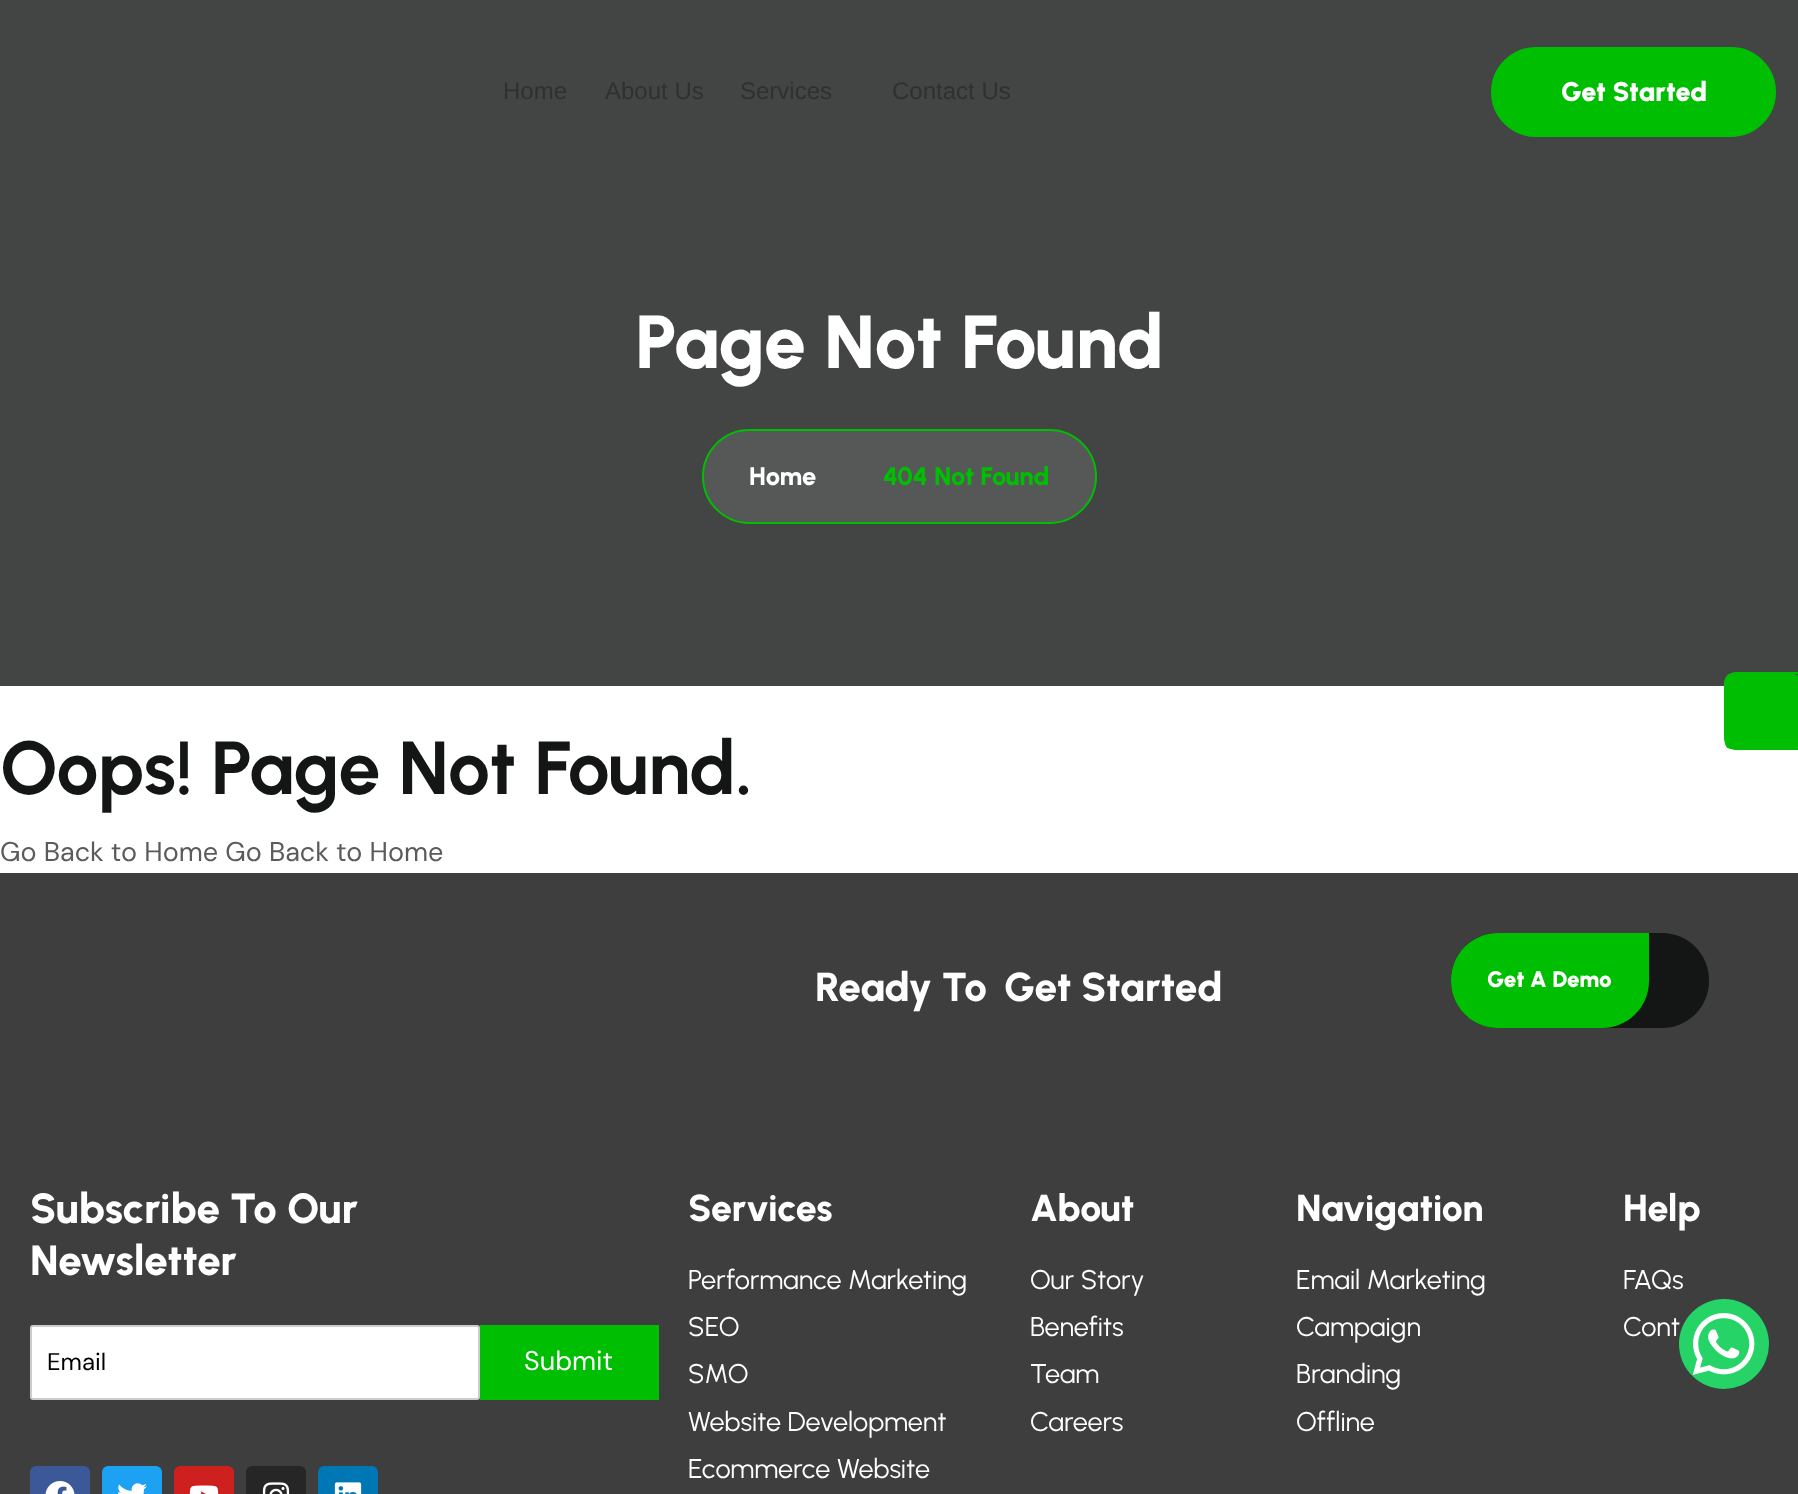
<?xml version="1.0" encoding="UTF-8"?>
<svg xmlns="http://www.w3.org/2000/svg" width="1798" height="1494">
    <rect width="100%" height="100%" fill="#FFFFFF"/>
    <rect x="0" y="0" width="1798" height="686" fill="#434444"/>
    <text x="503" y="99" font-family="Liberation Sans" font-size="24" fill="#303030">Home</text>
    <text x="605" y="99" font-family="Liberation Sans" font-size="24" fill="#303030">About Us</text>
    <text x="740" y="99" font-family="Liberation Sans" font-size="24" fill="#303030">Services</text>
    <text x="892" y="99" font-family="Liberation Sans" font-size="24" fill="#303030">Contact Us</text>
    <rect x="1492" y="48" width="283" height="88" rx="44" fill="#00BF03" stroke="#00BF03" stroke-width="2"/>
    <text x="1561" y="101" font-family="Urbanist" font-size="27" font-weight="900" fill="#FFFFFF">Get Started</text>
    <text x="635" y="368" font-family="Urbanist" font-size="75" font-weight="800" fill="#FFFFFF">Page Not Found</text>
    <rect x="703" y="430" width="393" height="93" rx="46.5" fill="#565757" stroke="#00BF03" stroke-width="2"/>
    <text x="749" y="485" font-family="Urbanist" font-size="25.5" font-weight="800" fill="#FFFFFF">Home</text>
    <text x="883" y="485" font-family="Urbanist" font-size="25.5" font-weight="800" fill="#00BF03">404 Not Found</text>
    <text x="0" y="794" font-family="Urbanist" font-size="75" font-weight="700" fill="#141515">Oops! Page Not Found.</text>
    <text x="0" y="861" font-family="DM Sans" font-size="27" fill="#5B5B5B">Go Back to Home Go Back to Home</text>
    <path d="M 1736 672 H 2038 V 750 H 1736 C 1729 750 1724 745 1724 738 V 684 C 1724 677 1729 672 1736 672 Z M 1736 674 H 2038 V 748 H 1736 C 1730 748 1725 744 1725 738 V 684 C 1725 678 1730 674 1736 674 Z" fill="#00BF03" fill-rule="evenodd"/>
    <rect x="1725" y="674" width="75" height="75" rx="6" fill="#00BF03"/>
    <rect x="0" y="873" width="1798" height="621" fill="#3E3E3E"/>
    <text x="815" y="1001" font-family="Urbanist" font-size="40.5" font-weight="800" fill="#FFFFFF">Ready To</text>
    <text x="1004" y="1001" font-family="Urbanist" font-size="40.5" font-weight="800" fill="#FFFFFF">Get Started</text>
    <rect x="1451" y="933" width="258" height="95" rx="47" fill="#141515"/>
    <path d="M 1498 933 H 1649 V 981 C 1649 1007 1628 1028 1602 1028 H 1498 C 1472 1028 1451 1007 1451 981 V 980 C 1451 954 1472 933 1498 933 Z" fill="#00BF03"/>
    <text x="1487" y="987" font-family="Urbanist" font-size="22.5" font-weight="900" fill="#FFFFFF">Get A Demo</text>
    <text font-family="Urbanist" font-size="42" font-weight="800" fill="#FFFFFF">
        <tspan x="30" y="1223">Subscribe To Our</tspan>
        <tspan x="30" y="1275">Newsletter</tspan>
    </text>
    <rect x="31" y="1326" width="448" height="73" rx="2" fill="#FFFFFF" stroke="#CCCCCC" stroke-width="2"/>
    <text x="47" y="1370" font-family="DM Sans" font-size="24" fill="#000000">Email</text>
    <rect x="480" y="1325" width="179" height="75" fill="#00BF03"/>
    <text x="524" y="1370" font-family="DM Sans" font-size="27" fill="#FFFFFF">Submit</text>
    <rect x="30" y="1466" width="60" height="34" rx="6" fill="#3B5998"/>
    <image x="45" y="1481" width="30" height="13" href="img_01.png"/>
    <rect x="102" y="1466" width="60" height="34" rx="6" fill="#1DA1F2"/>
    <image x="118" y="1483" width="29" height="11" href="img_02.png"/>
    <rect x="174" y="1466" width="60" height="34" rx="6" fill="#CD201F"/>
    <image x="189" y="1485" width="30" height="9" href="img_03.png"/>
    <rect x="246" y="1466" width="60" height="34" rx="6" fill="#262626"/>
    <image x="262" y="1482" width="28" height="12" href="img_04.png"/>
    <rect x="318" y="1466" width="60" height="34" rx="6" fill="#0077B5"/>
    <image x="334" y="1482" width="28" height="12" href="img_05.png"/>
    <text x="688" y="1221" font-family="Urbanist" font-size="37.5" font-weight="800" fill="#FFFFFF">Services</text>
    <text font-family="Urbanist" font-size="27" fill="#FFFFFF">
        <tspan x="688" y="1289">Performance Marketing</tspan>
        <tspan x="688" y="1336">SEO</tspan>
        <tspan x="688" y="1383">SMO</tspan>
        <tspan x="688" y="1431">Website Development</tspan>
        <tspan x="688" y="1478">Ecommerce Website</tspan>
    </text>
    <text x="1030" y="1221" font-family="Urbanist" font-size="37.5" font-weight="800" fill="#FFFFFF">About</text>
    <text font-family="Urbanist" font-size="27" fill="#FFFFFF">
        <tspan x="1030" y="1289">Our Story</tspan>
        <tspan x="1030" y="1336">Benefits</tspan>
        <tspan x="1030" y="1383">Team</tspan>
        <tspan x="1030" y="1431">Careers</tspan>
    </text>
    <text x="1296" y="1221" font-family="Urbanist" font-size="37.5" font-weight="800" fill="#FFFFFF">Navigation</text>
    <text font-family="Urbanist" font-size="27" fill="#FFFFFF">
        <tspan x="1296" y="1289">Email Marketing</tspan>
        <tspan x="1296" y="1336">Campaign</tspan>
        <tspan x="1296" y="1383">Branding</tspan>
        <tspan x="1296" y="1431">Offline</tspan>
    </text>
    <text x="1623" y="1221" font-family="Urbanist" font-size="37.5" font-weight="800" fill="#FFFFFF">Help</text>
    <text font-family="Urbanist" font-size="27" fill="#FFFFFF">
        <tspan x="1623" y="1289">FAQs</tspan>
        <tspan x="1623" y="1336">Cont</tspan>
    </text>
    <circle cx="1724" cy="1344" r="45" fill="#25D366"/>
    <image x="1692" y="1313" width="63" height="62" href="img_06.png"/>
</svg>
